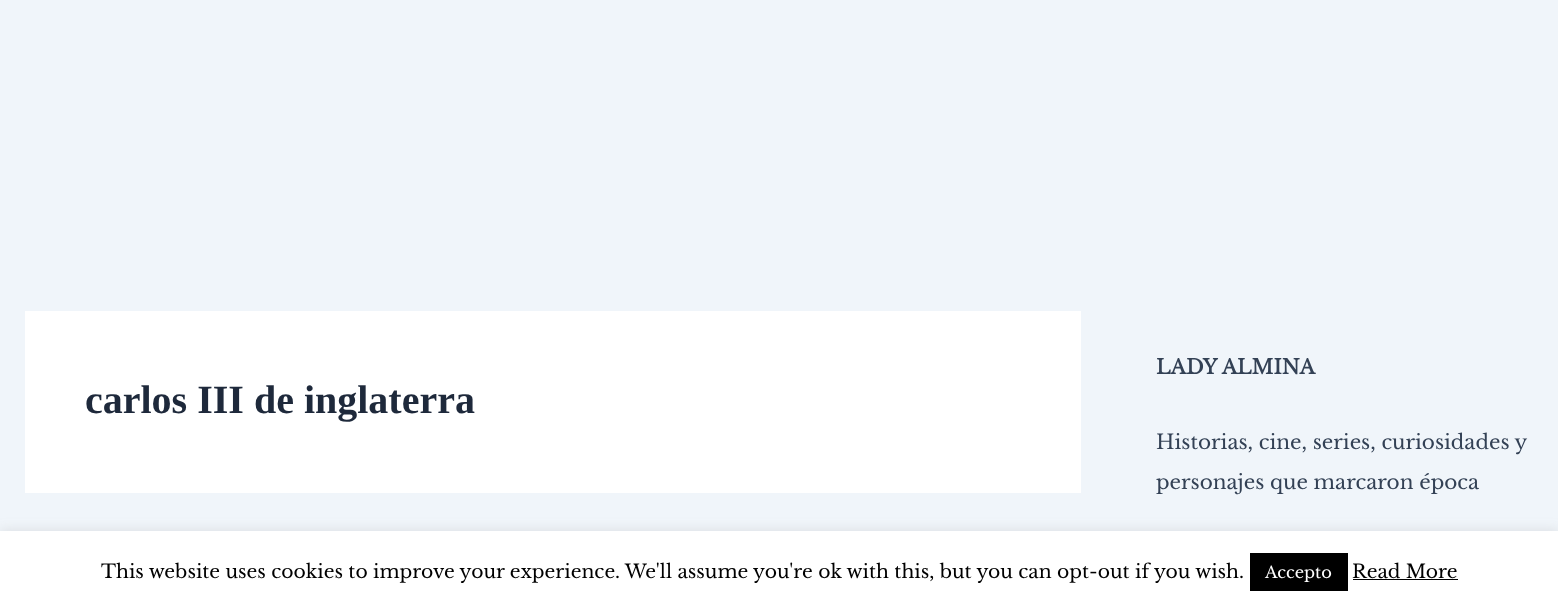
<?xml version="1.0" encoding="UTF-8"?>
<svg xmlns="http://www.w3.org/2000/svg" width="1558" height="606">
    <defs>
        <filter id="blur1" x="-50%" y="-200%" width="200%" height="500%"><feGaussianBlur stdDeviation="6"/></filter>
    </defs>
    <rect width="100%" height="100%" fill="#F0F5FA"/>
    <rect x="25" y="311" width="1056" height="182" fill="#FFFFFF"/>
    <text x="85" y="413" font-family="Liberation Serif" font-size="40" font-weight="700" fill="#1E293B">carlos III de inglaterra</text>
    <text x="1156" y="374" font-family="Libre Baskerville" font-size="20" font-weight="700" fill="#334155">LADY ALMINA</text>
    <text x="1156" y="449" font-family="Libre Baskerville" font-size="20" fill="#334155">Historias, cine, series, curiosidades y</text>
    <text x="1156" y="489" font-family="Libre Baskerville" font-size="20" fill="#334155">personajes que marcaron época</text>
    <rect x="0" y="530" width="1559" height="75" fill="#ACABAB" fill-opacity="0.3" filter="url(#blur1)"/>
    <rect x="0" y="531" width="1558" height="75" fill="#FFFFFF"/>
    <text x="101" y="578" font-family="Libre Baskerville" font-size="18.75" fill="#000000">This website uses cookies to improve your experience. We'll assume you're ok with this, but you can opt-out if you wish.</text>
    <rect x="1250" y="553" width="98" height="38" fill="#000000"/>
    <text x="1265" y="578" font-family="Libre Baskerville" font-size="16.25" fill="#FFFFFF">Accepto</text>
    <text x="1352" y="578" font-family="Libre Baskerville" font-size="18.75" fill="#000000">Read More</text>
    <rect x="1353" y="579" width="105" height="1" fill="#000000"/>
</svg>
